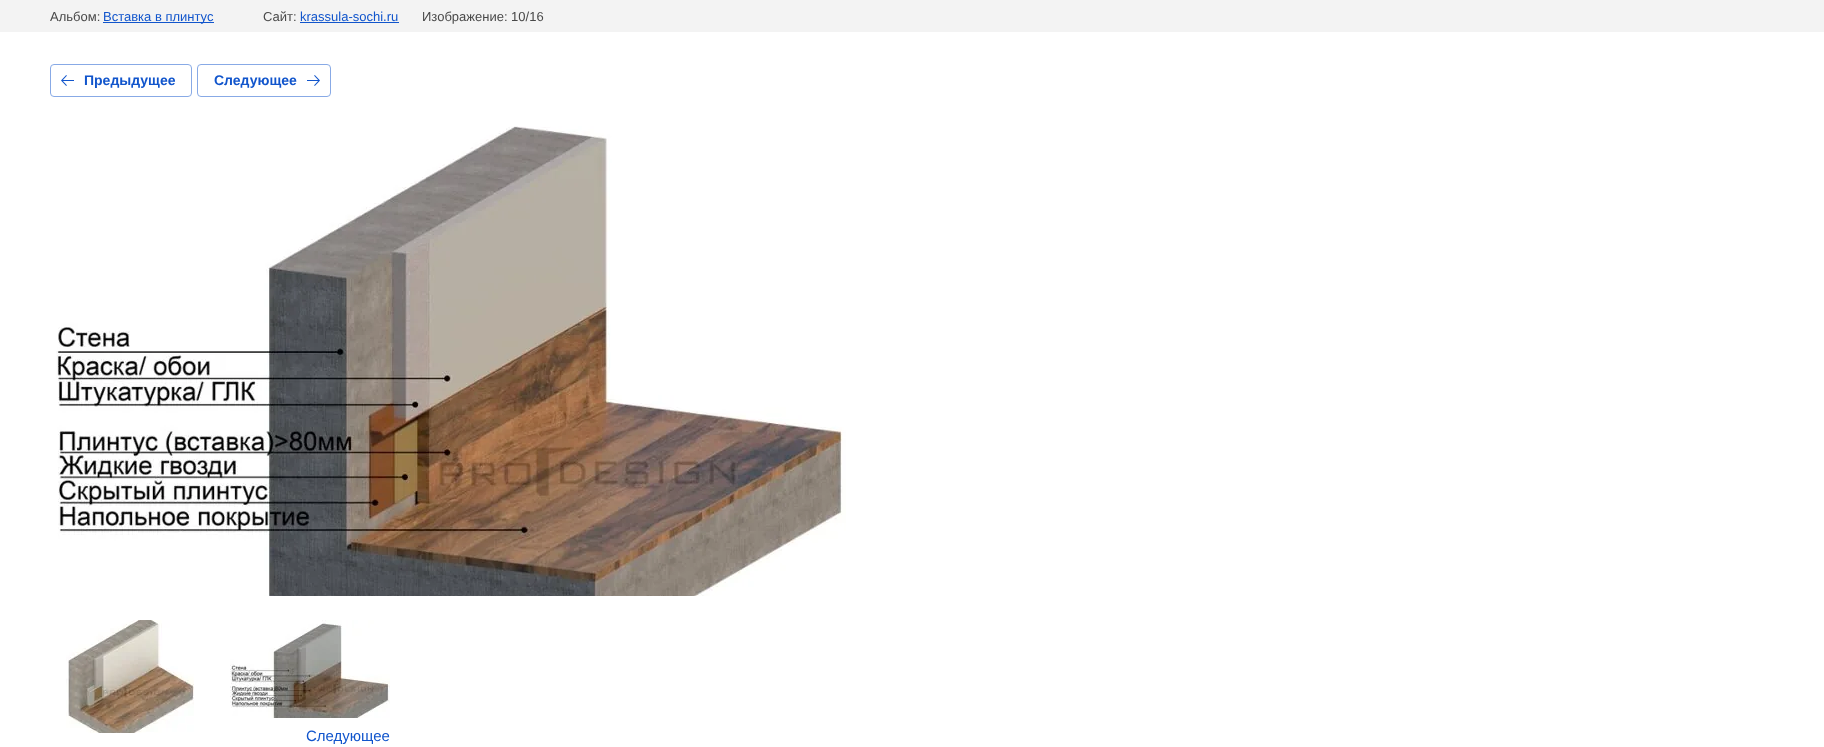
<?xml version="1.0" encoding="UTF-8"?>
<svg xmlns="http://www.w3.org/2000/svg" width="1824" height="747">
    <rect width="100%" height="100%" fill="#FFFFFF"/>
    <rect x="0" y="0" width="1824" height="32" fill="#F3F3F3"/>
    <text x="50" y="21" font-family="Liberation Sans" font-size="13" fill="#484848">Альбом:</text>
    <rect x="103" y="22" width="111" height="1" fill="#1155CC"/>
    <text x="103" y="21" font-family="Liberation Sans" font-size="13" fill="#1155CC">Вставка в плинтус</text>
    <text x="263" y="21" font-family="Liberation Sans" font-size="13" fill="#484848">Сайт:</text>
    <text x="300" y="21" font-family="Liberation Sans" font-size="13" fill="#1155CC">krassula-sochi.ru</text>
    <rect x="300" y="22" width="99" height="1" fill="#1155CC"/>
    <text x="422" y="21" font-family="Liberation Sans" font-size="13" fill="#484848">Изображение: 10/16</text>
    <rect x="50.5" y="64.5" width="141" height="32" rx="3.5" fill="none" stroke="#88AAE6"/>
    <image x="61" y="75" width="13" height="11" href="img_01.png"/>
    <text x="84" y="85" font-family="Liberation Sans" font-size="14" font-weight="700" fill="#1155CC">Предыдущее</text>
    <rect x="197.5" y="64.5" width="133" height="32" rx="3.5" fill="none" stroke="#88AAE6"/>
    <text x="214" y="85" font-family="Liberation Sans" font-size="14" font-weight="700" fill="#1155CC">Следующее</text>
    <image x="307" y="75" width="13" height="11" href="img_02.png"/>
    <image x="56" y="126" width="790" height="470" href="img_03.png"/>
    <image x="66" y="620" width="128" height="113" href="img_04.png"/>
    <image x="230" y="620" width="160" height="98" href="img_05.png"/>
    <text x="306" y="741" font-family="Liberation Sans" font-size="15" fill="#1155CC">Следующее</text>
</svg>
